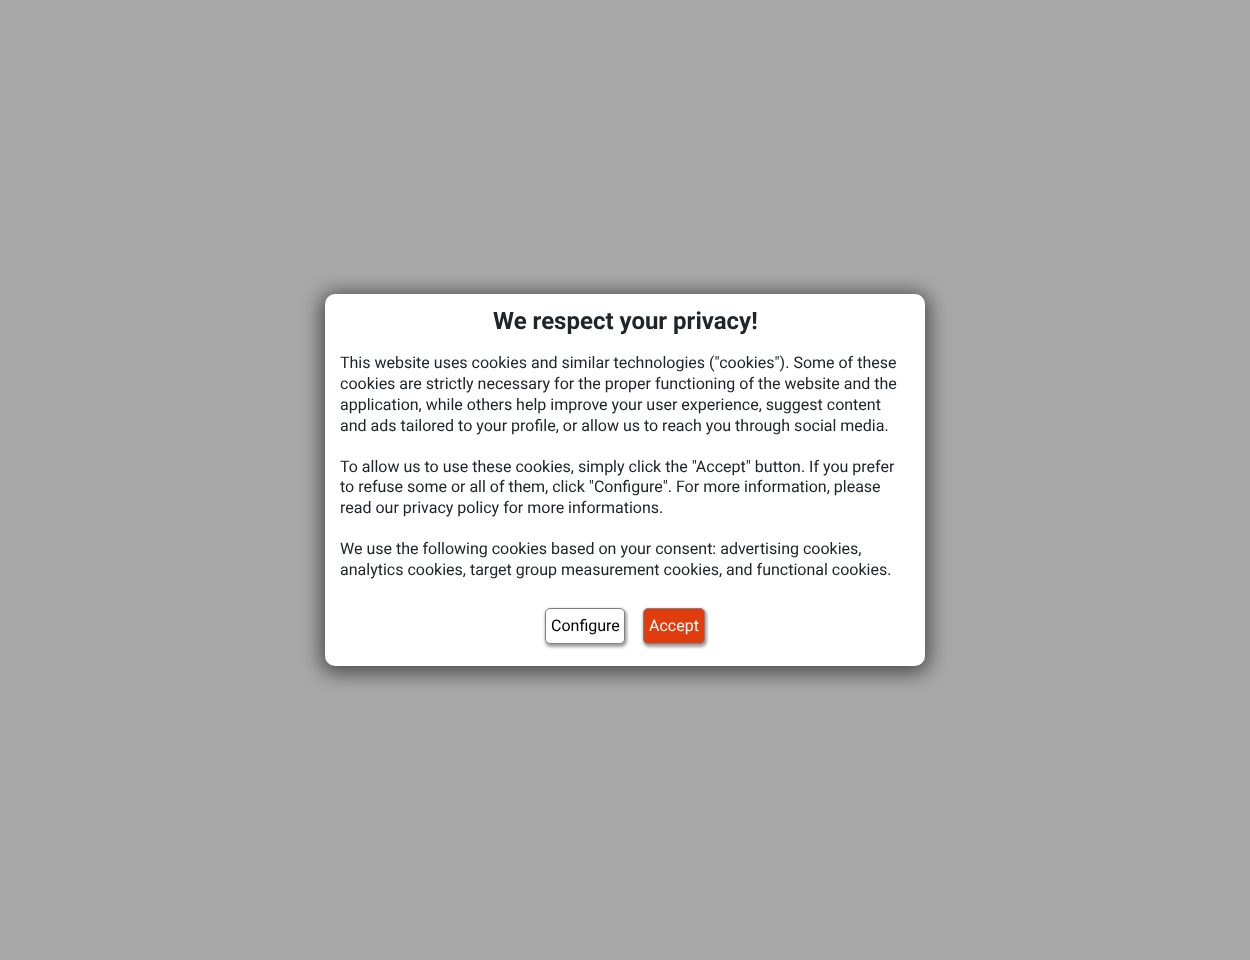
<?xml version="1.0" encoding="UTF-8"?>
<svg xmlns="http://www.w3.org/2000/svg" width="1250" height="960">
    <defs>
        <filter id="blur1" x="-50%" y="-200%" width="200%" height="500%"><feGaussianBlur stdDeviation="10"/></filter>
        <filter id="blur2" x="-50%" y="-200%" width="200%" height="500%"><feGaussianBlur stdDeviation="1.5"/></filter>
    </defs>
    <rect width="100%" height="100%" fill="#A8A8A8"/>
    <rect x="321" y="293" width="608" height="380" rx="14" fill="#000000" fill-opacity="0.56" filter="url(#blur1)"/>
    <rect x="325" y="294" width="600" height="372" rx="10" fill="#FFFFFF"/>
    <text x="493" y="329" font-family="Roboto" font-size="24" font-weight="700" fill="#212529">We respect your privacy!</text>
    <text font-family="Roboto" font-size="16" fill="#212529">
        <tspan x="340" y="368">This website uses cookies and similar technologies ("cookies"). Some of these</tspan>
        <tspan x="340" y="389">cookies are strictly necessary for the proper functioning of the website and the</tspan>
        <tspan x="340" y="410">application, while others help improve your user experience, suggest content</tspan>
        <tspan x="340" y="431">and ads tailored to your profile, or allow us to reach you through social media.</tspan>
    </text>
    <text font-family="Roboto" font-size="16" fill="#212529">
        <tspan x="340" y="472">To allow us to use these cookies, simply click the "Accept" button. If you prefer</tspan>
        <tspan x="340" y="492">to refuse some or all of them, click "Configure". For more information, please</tspan>
        <tspan x="340" y="513">read our privacy policy for more informations.</tspan>
    </text>
    <text font-family="Roboto" font-size="16" fill="#212529">
        <tspan x="340" y="554">We use the following cookies based on your consent: advertising cookies,</tspan>
        <tspan x="340" y="575">analytics cookies, target group measurement cookies, and functional cookies.</tspan>
    </text>
    <rect x="545" y="609" width="82" height="38" rx="6" fill="#808080" fill-opacity="0.75" filter="url(#blur2)"/>
    <rect x="545.5" y="608.5" width="79" height="35" rx="4.5" fill="#FFFFFF" stroke="#808080"/>
    <text x="551" y="631" font-family="Roboto" font-size="16" fill="#000000">Configure</text>
    <rect x="643" y="609" width="64" height="38" rx="6" fill="#808080" fill-opacity="0.75" filter="url(#blur2)"/>
    <rect x="643.5" y="608.5" width="61" height="35" rx="4.5" fill="#E13C0E" stroke="#808080"/>
    <text x="649" y="631" font-family="Roboto" font-size="16" fill="#FFFFFF">Accept</text>
</svg>
